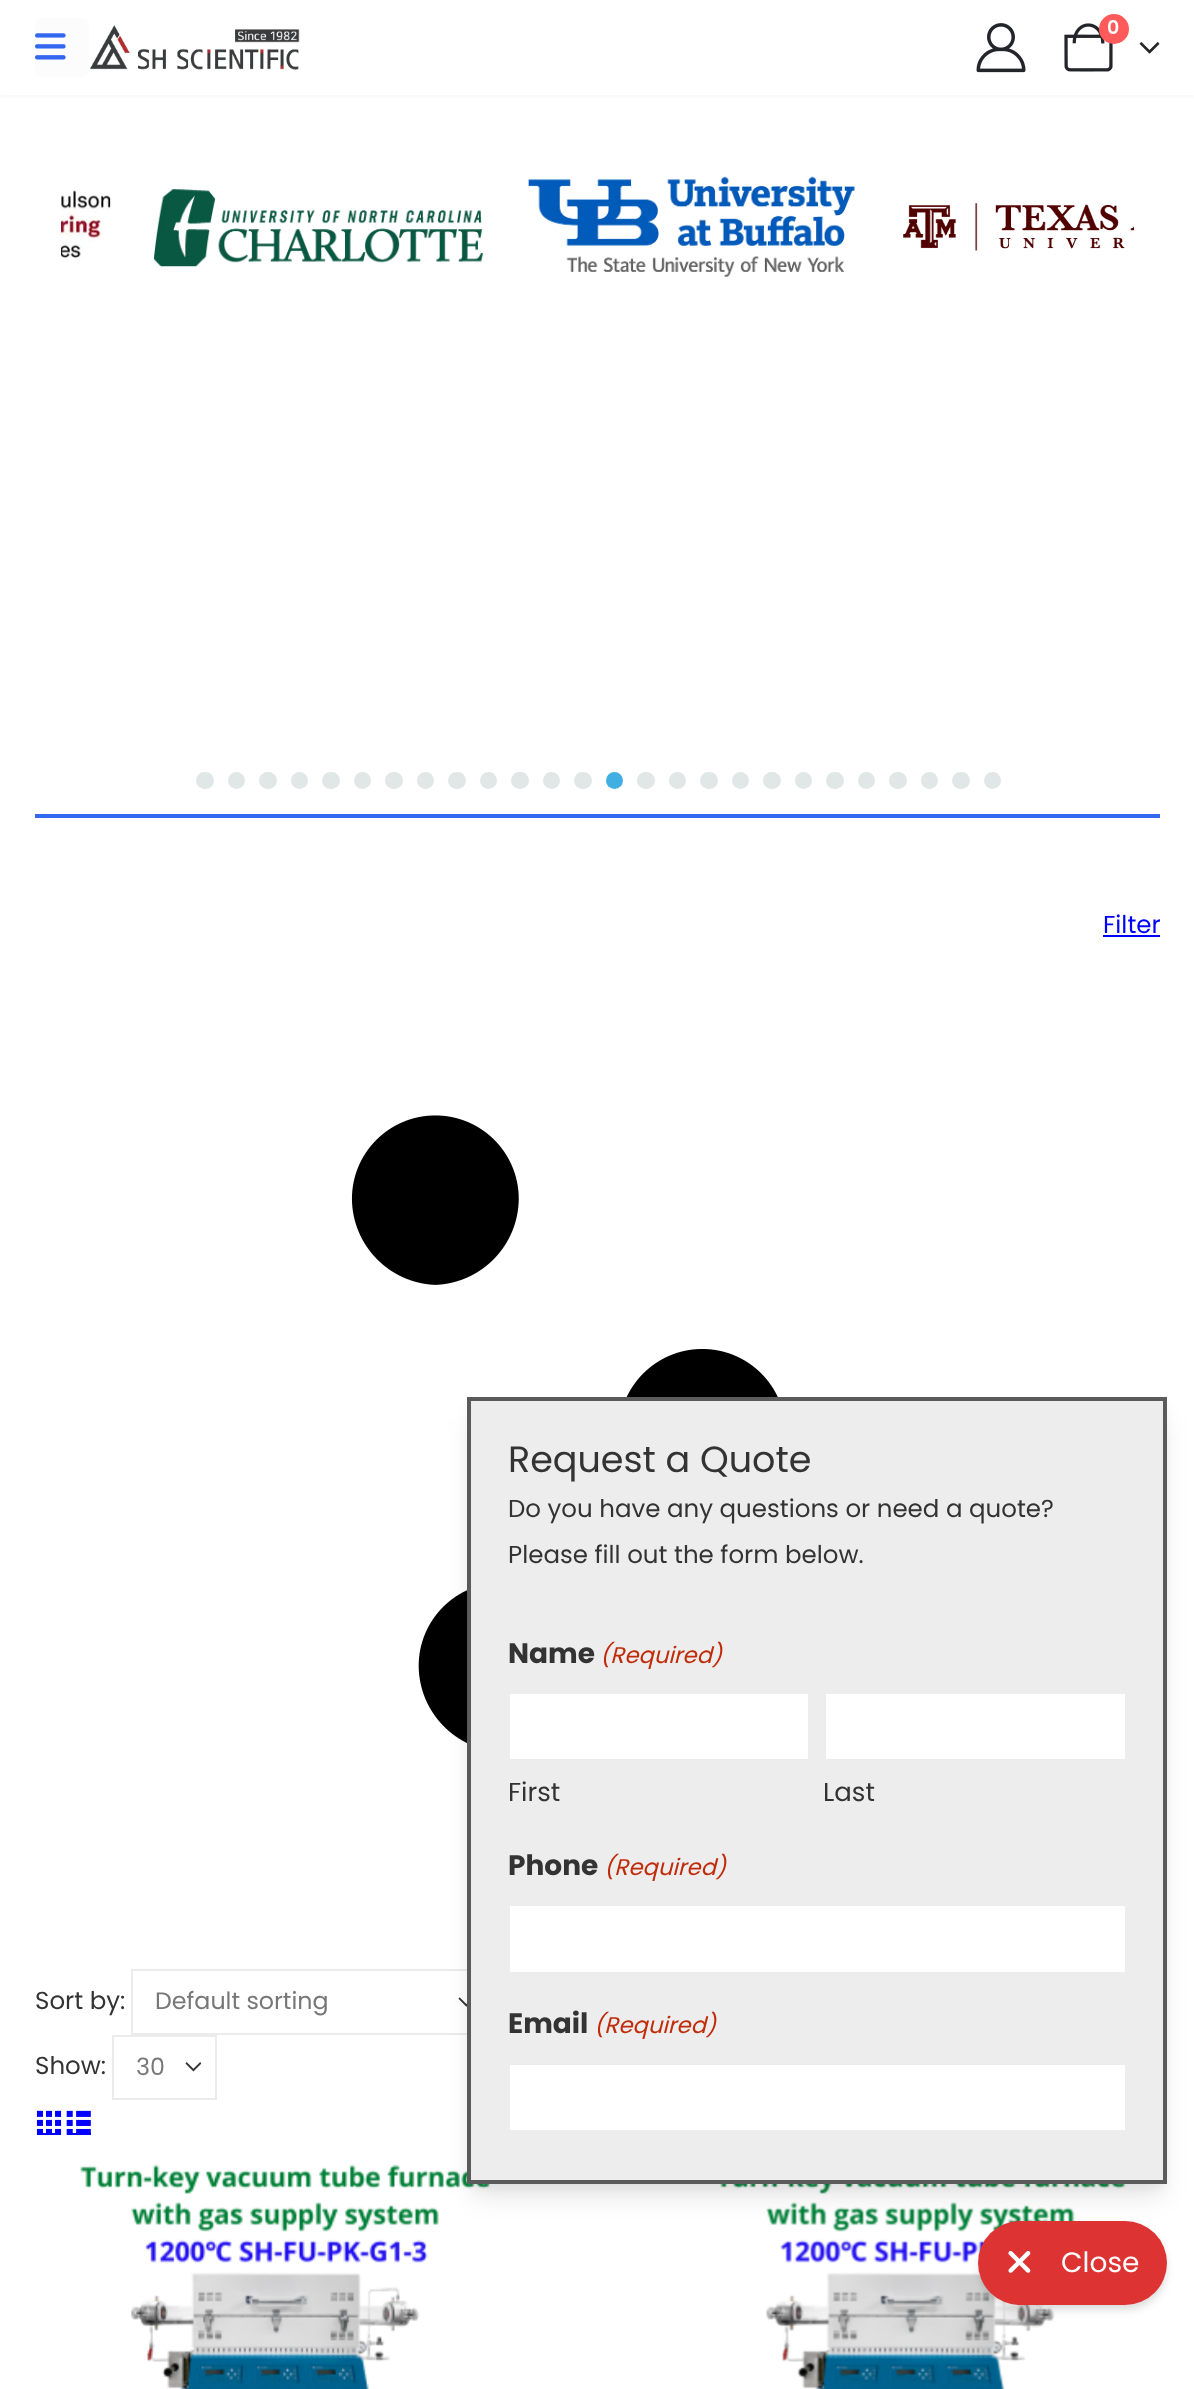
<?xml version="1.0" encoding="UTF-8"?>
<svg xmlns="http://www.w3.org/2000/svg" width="1194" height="2389">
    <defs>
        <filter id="blur1" x="-50%" y="-200%" width="200%" height="500%"><feGaussianBlur stdDeviation="2.5"/></filter>
        <filter id="blur2" x="-50%" y="-200%" width="200%" height="500%"><feGaussianBlur stdDeviation="5"/></filter>
        <filter id="blur3" x="-50%" y="-200%" width="200%" height="500%"><feGaussianBlur stdDeviation="3.5"/></filter>
        <filter id="blur4" x="-50%" y="-200%" width="200%" height="500%"><feGaussianBlur stdDeviation="13"/></filter>
    </defs>
    <rect width="100%" height="100%" fill="#FFFFFF"/>
    <rect x="0" y="0" width="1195" height="95" fill="#000000" fill-opacity="0.06" filter="url(#blur1)"/>
    <rect x="0" y="0" width="1194" height="95" fill="#FFFFFF"/>
    <rect x="35" y="18" width="54" height="59" rx="7" fill="#FCFCFC"/>
    <image x="35" y="33" width="31" height="27" href="img_01.png"/>
    <image x="89" y="25" width="211" height="45" href="img_02.png"/>
    <image x="976" y="23" width="50" height="50" href="img_03.png"/>
    <image x="1064" y="23" width="49" height="49" href="img_04.png"/>
    <circle cx="1114" cy="29" r="15" fill="#FF5B5B"/>
    <text x="1107" y="34" font-family="Poppins" font-size="19" font-weight="600" fill="#FFFFFF">0</text>
    <image x="1139" y="42" width="21" height="12" href="img_05.png"/>
    <rect x="35" y="814" width="1125" height="4" fill="#3467EF"/>
    <image x="61" y="190" width="50" height="70" href="img_06.png"/>
    <image x="154" y="189" width="330" height="78" href="img_07.png"/>
    <image x="528" y="176" width="327" height="101" href="img_08.png"/>
    <image x="903" y="203" width="231" height="48" href="img_09.png"/>
    <rect x="196" y="772" width="18" height="17" rx="8.5" fill="#E1E6E7"/>
    <circle cx="236.5" cy="780.5" r="8.5" fill="#E1E6E7"/>
    <rect x="259" y="772" width="18" height="17" rx="8.5" fill="#E1E6E7"/>
    <circle cx="299.5" cy="780.5" r="8.5" fill="#E1E6E7"/>
    <rect x="322" y="772" width="18" height="17" rx="8.5" fill="#E1E6E7"/>
    <circle cx="362.5" cy="780.5" r="8.5" fill="#E1E6E7"/>
    <rect x="385" y="772" width="18" height="17" rx="8.5" fill="#E1E6E7"/>
    <circle cx="425.5" cy="780.5" r="8.5" fill="#E1E6E7"/>
    <rect x="448" y="772" width="18" height="17" rx="8.5" fill="#E1E6E7"/>
    <circle cx="488.5" cy="780.5" r="8.5" fill="#E1E6E7"/>
    <rect x="511" y="772" width="18" height="17" rx="8.5" fill="#E1E6E7"/>
    <circle cx="551.5" cy="780.5" r="8.5" fill="#E1E6E7"/>
    <rect x="574" y="772" width="18" height="17" rx="8.5" fill="#E1E6E7"/>
    <circle cx="614.5" cy="780.5" r="8.5" fill="#42AFE3"/>
    <rect x="637" y="772" width="18" height="17" rx="8.5" fill="#E1E6E7"/>
    <circle cx="677.5" cy="780.5" r="8.5" fill="#E1E6E7"/>
    <rect x="700" y="772" width="18" height="17" rx="8.5" fill="#E1E6E7"/>
    <circle cx="740.5" cy="780.5" r="8.5" fill="#E1E6E7"/>
    <rect x="763" y="772" width="18" height="17" rx="8.5" fill="#E1E6E7"/>
    <circle cx="803.5" cy="780.5" r="8.5" fill="#E1E6E7"/>
    <rect x="826" y="772" width="18" height="17" rx="8.5" fill="#E1E6E7"/>
    <circle cx="866.5" cy="780.5" r="8.5" fill="#E1E6E7"/>
    <rect x="889" y="772" width="18" height="17" rx="8.5" fill="#E1E6E7"/>
    <circle cx="929.5" cy="780.5" r="8.5" fill="#E1E6E7"/>
    <rect x="952" y="772" width="18" height="17" rx="8.5" fill="#E1E6E7"/>
    <circle cx="992.5" cy="780.5" r="8.5" fill="#E1E6E7"/>
    <text x="1103" y="933" font-family="Poppins" font-size="24.5" fill="#0000FF">Filter</text>
    <rect x="1103" y="935" width="57" height="2" fill="#0000FF"/>
    <image x="351" y="1115" width="427" height="628" href="img_10.png"/>
    <text x="35" y="2009" font-family="Poppins" font-size="24.5" fill="#333333">Sort by:</text>
    <image x="458" y="1997" width="9" height="10" href="img_11.png"/>
    <rect x="132" y="1970" width="357" height="64" fill="none" stroke="#EBEBEB" stroke-width="2"/>
    <text x="155" y="2009" font-family="Poppins" font-size="23.75" fill="#777777">Default sorting</text>
    <text x="35" y="2074" font-family="Poppins" font-size="24.5" fill="#333333">Show:</text>
    <image x="185" y="2062" width="17" height="10" href="img_12.png"/>
    <rect x="113" y="2036" width="103" height="63" fill="none" stroke="#EBEBEB" stroke-width="2"/>
    <text x="136" y="2075" font-family="Poppins" font-size="23.75" fill="#777777">30</text>
    <rect x="37" y="2133" width="24" height="2" fill="#0000FF"/>
    <image x="36" y="2110" width="26" height="25" href="img_13.png"/>
    <rect x="67" y="2133" width="24" height="2" fill="#0000FF"/>
    <image x="66" y="2110" width="25" height="25" href="img_14.png"/>
    <image x="80" y="2164" width="411" height="225" href="img_15.png"/>
    <image x="715" y="2184" width="412" height="205" href="img_16.png"/>
    <rect x="471" y="1407" width="693" height="781" fill="#000000" fill-opacity="0.05" filter="url(#blur2)"/>
    <rect x="980" y="2226" width="186" height="81" rx="40.5" fill="#000000" fill-opacity="0.06" filter="url(#blur3)"/>
    <rect x="980" y="2230" width="186" height="80" rx="40" fill="#000000" fill-opacity="0.1" filter="url(#blur2)"/>
    <rect x="978" y="2221" width="189" height="84" rx="42" fill="#DD3333"/>
    <rect x="473" y="1419" width="689" height="777" fill="#000000" fill-opacity="0.1" filter="url(#blur4)"/>
    <rect x="469" y="1399" width="696" height="783" fill="#EDEDED" stroke="#5B5B5B" stroke-width="4"/>
    <text x="508" y="1472" font-family="Poppins" font-size="36.5" fill="#333333">Request a Quote</text>
    <text font-family="Poppins" font-size="24.5" fill="#333333">
        <tspan x="508" y="1517">Do you have any questions or need a quote?</tspan>
        <tspan x="508" y="1563">Please fill out the form below.</tspan>
    </text>
    <text x="508" y="1663" font-family="Poppins" font-size="28" font-weight="700" fill="#333333">Name</text>
    <text x="600" y="1663" font-family="Poppins" font-size="22.75" font-style="italic" fill="#C02B0A">(Required)</text>
    <rect x="510" y="1694" width="298" height="65" fill="#FFFFFF"/>
    <text x="508" y="1801" font-family="Poppins" font-size="26" fill="#333333">First</text>
    <rect x="826" y="1694" width="299" height="65" fill="#FFFFFF"/>
    <text x="823" y="1801" font-family="Poppins" font-size="26" fill="#333333">Last</text>
    <text x="508" y="1875" font-family="Poppins" font-size="28" font-weight="700" fill="#333333">Phone</text>
    <text x="604" y="1875" font-family="Poppins" font-size="22.75" font-style="italic" fill="#C02B0A">(Required)</text>
    <rect x="510" y="1906" width="615" height="66" fill="#FFFFFF"/>
    <text x="508" y="2033" font-family="Poppins" font-size="28" font-weight="700" fill="#333333">Email</text>
    <text x="594" y="2033" font-family="Poppins" font-size="22.75" font-style="italic" fill="#C02B0A">(Required)</text>
    <rect x="510" y="2065" width="615" height="65" fill="#FFFFFF"/>
    <image x="1008" y="2251" width="23" height="22" href="img_17.png"/>
    <text x="1061" y="2272" font-family="Poppins" font-size="28" fill="#FFFFFF">Close</text>
</svg>
